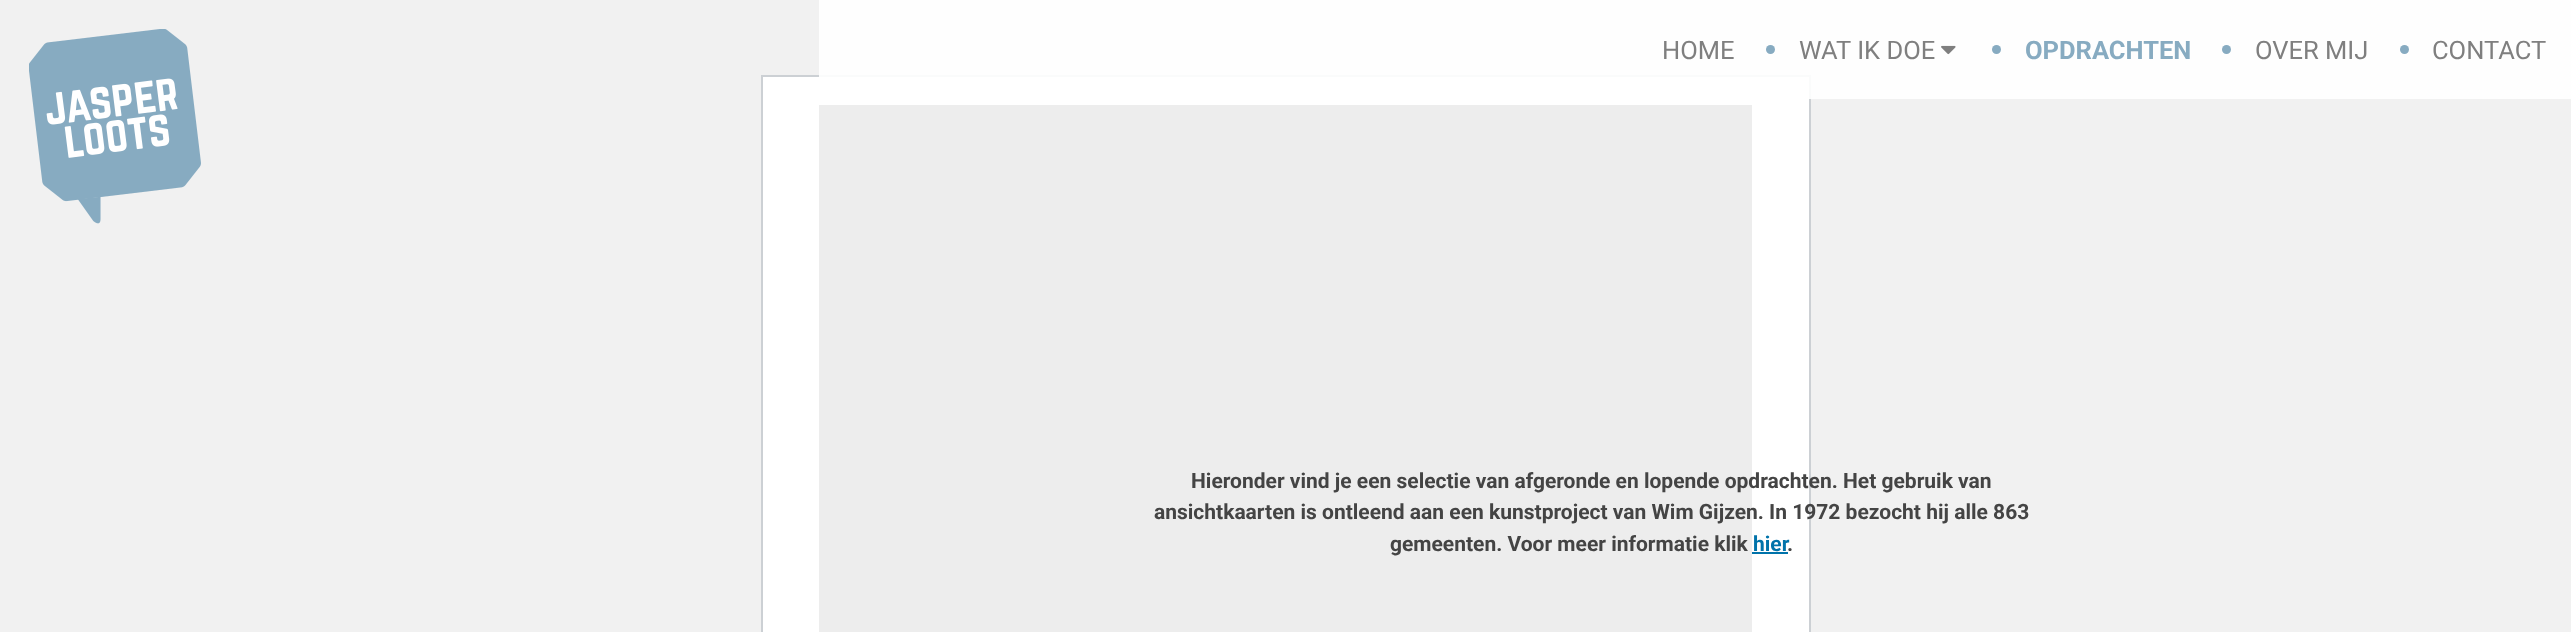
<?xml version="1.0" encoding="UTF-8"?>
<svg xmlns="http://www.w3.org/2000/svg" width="2571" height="632">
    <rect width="100%" height="100%" fill="#F1F1F1"/>
    <rect x="762" y="76" width="1048" height="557" fill="#FFFFFF" stroke="#CCD0D4" stroke-width="2"/>
    <rect x="819" y="0" width="1752" height="99" fill="#FFFFFF" fill-opacity="0.9"/>
    <image x="29" y="29" width="172" height="195" href="img_01.png"/>
    <text x="1662" y="59" font-family="Roboto" font-size="25.5" fill="#7F7F7F">HOME</text>
    <circle cx="1770.5" cy="49.5" r="4.5" fill="#87ABC1"/>
    <text x="1799" y="59" font-family="Roboto" font-size="25.5" fill="#7F7F7F">WAT IK DOE</text>
    <image x="1941" y="45" width="15" height="10" href="img_02.png"/>
    <circle cx="1996.5" cy="49.5" r="4.5" fill="#87ABC1"/>
    <text x="2025" y="59" font-family="Roboto" font-size="25.5" font-weight="700" fill="#87ABC1">OPDRACHTEN</text>
    <circle cx="2226.5" cy="49.5" r="4.5" fill="#87ABC1"/>
    <text x="2255" y="59" font-family="Roboto" font-size="25.5" fill="#7F7F7F">OVER MIJ</text>
    <circle cx="2404.5" cy="49.5" r="4.5" fill="#87ABC1"/>
    <text x="2432" y="59" font-family="Roboto" font-size="25.5" fill="#7F7F7F">CONTACT</text>
    <rect x="819" y="105" width="933" height="527" fill="#EDEDED"/>
    <text x="1191" y="488" font-family="Roboto" font-size="21" font-weight="700" fill="#444444">Hieronder vind je een selectie van afgeronde en lopende opdrachten. Het gebruik van</text>
    <text x="1154" y="519" font-family="Roboto" font-size="21" font-weight="700" fill="#444444">ansichtkaarten is ontleend aan een kunstproject van Wim Gijzen. In 1972 bezocht hij alle 863</text>
    <text x="1390" y="551" font-family="Roboto" font-size="21" font-weight="700" fill="#444444">gemeenten. Voor meer informatie klik</text>
    <text x="1753" y="551" font-family="Roboto" font-size="21" font-weight="700" fill="#0073AA">hier</text>
    <rect x="1752" y="552" width="36" height="2" fill="#0073AA"/>
    <text x="1787" y="551" font-family="Roboto" font-size="21" font-weight="700" fill="#444444">.</text>
</svg>
